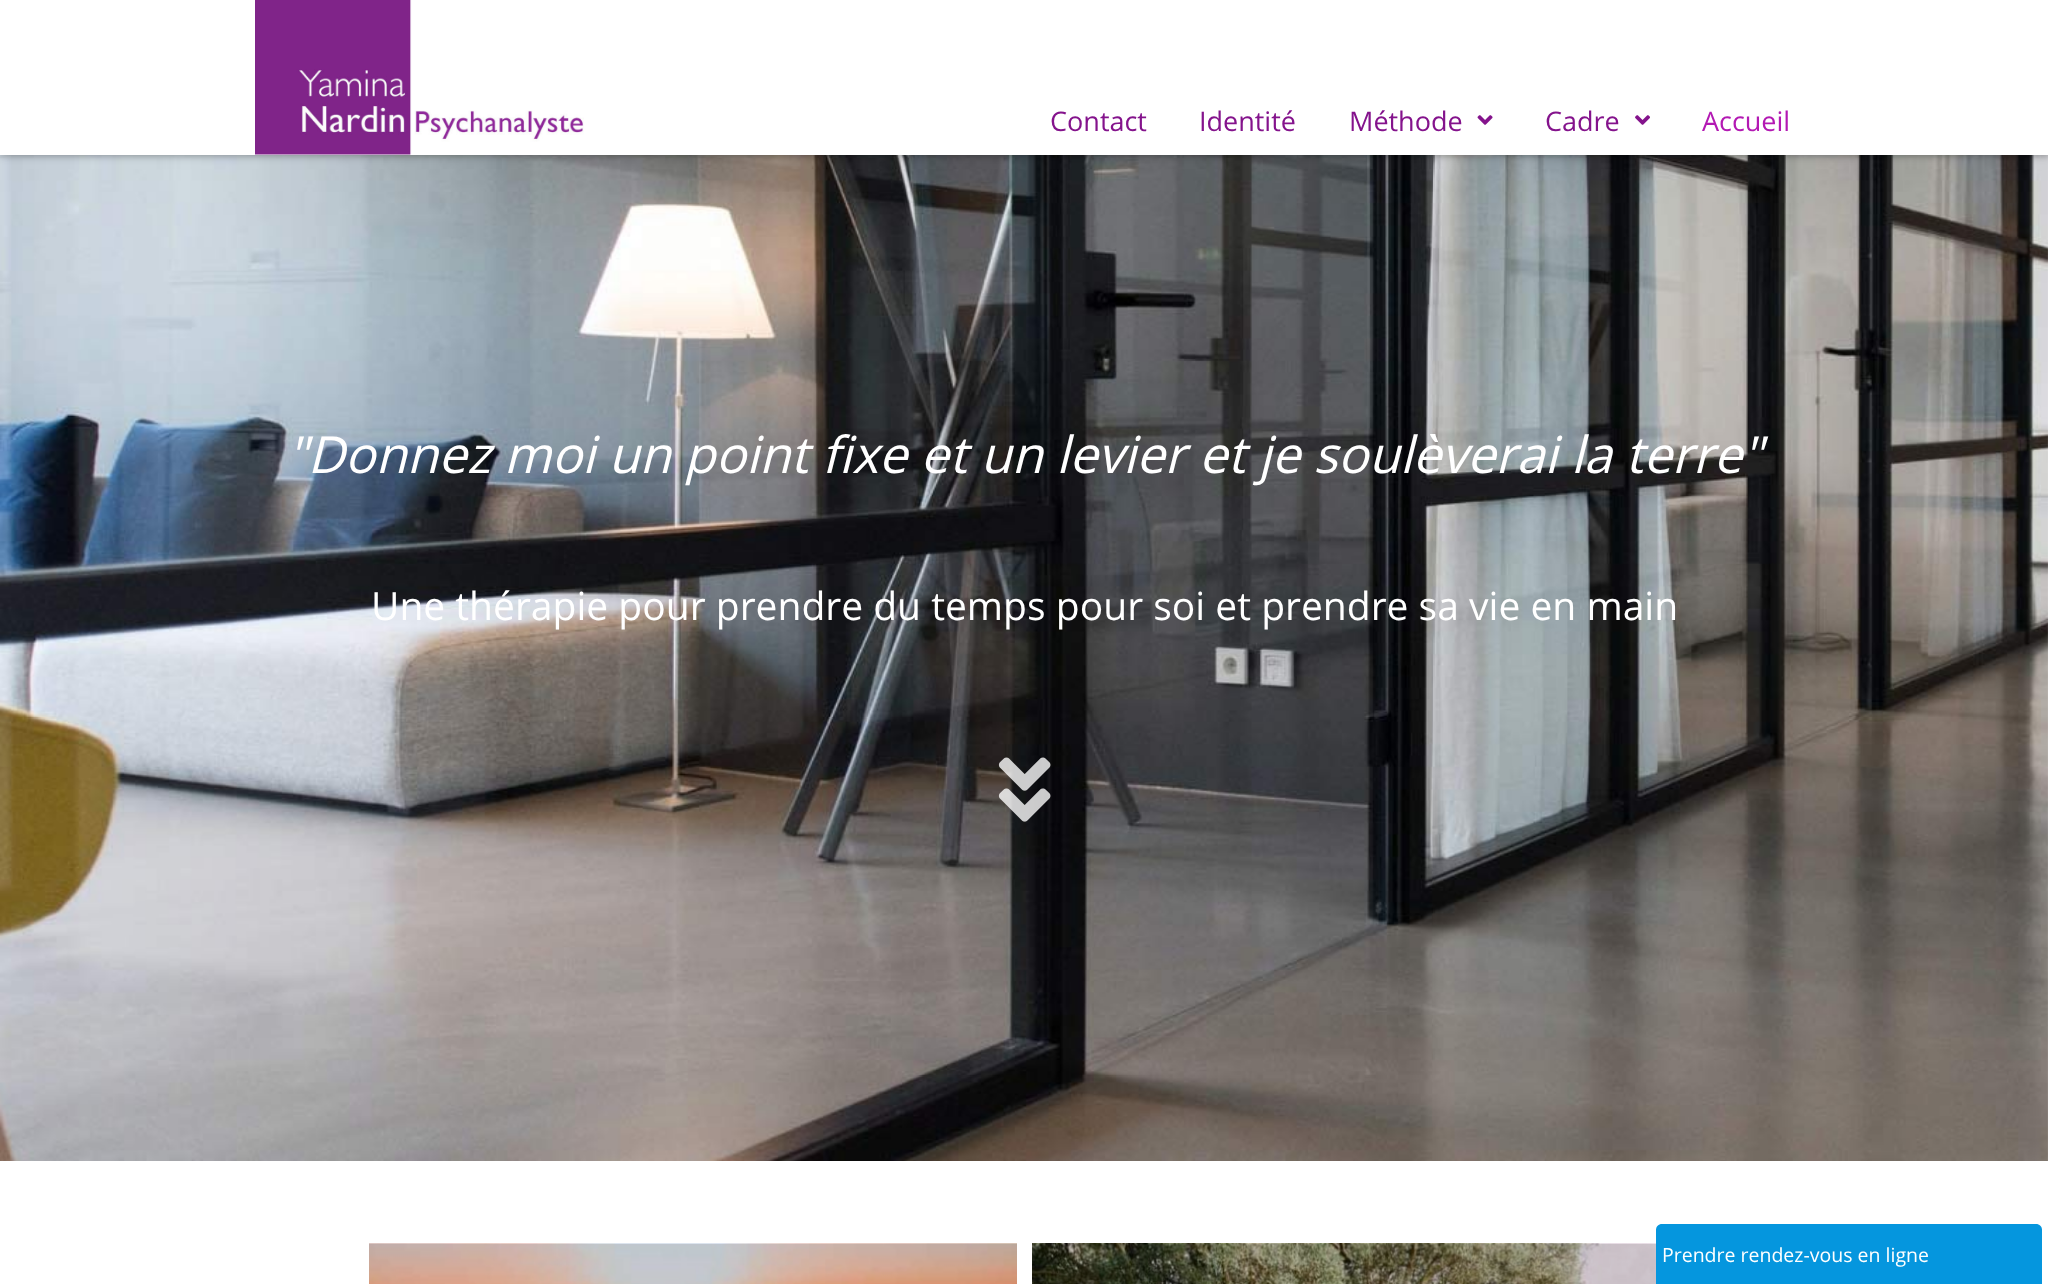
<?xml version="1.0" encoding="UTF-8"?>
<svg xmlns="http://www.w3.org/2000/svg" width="2048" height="1284">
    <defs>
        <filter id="blur1" x="-50%" y="-200%" width="200%" height="500%"><feGaussianBlur stdDeviation="4.5"/></filter>
    </defs>
    <rect width="100%" height="100%" fill="#FFFFFF"/>
    <image x="0" y="155" width="2048" height="1006" href="img_04.png"/>
    <rect x="0" y="0" width="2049" height="155" fill="#000000" fill-opacity="0.4" filter="url(#blur1)"/>
    <rect x="0" y="0" width="2048" height="155" fill="#FFFFFF"/>
    <image x="255" y="0" width="329" height="155" href="img_01.png"/>
    <text x="1050" y="131" font-family="Open Sans" font-size="27" fill="#84138C">Contact</text>
    <text x="1199" y="131" font-family="Open Sans" font-size="27" fill="#84138C">Identité</text>
    <text x="1349" y="131" font-family="Open Sans" font-size="27" fill="#84138C">Méthode</text>
    <image x="1477" y="115" width="16" height="10" href="img_02.png"/>
    <text x="1545" y="131" font-family="Open Sans" font-size="27" fill="#84138C">Cadre</text>
    <image x="1635" y="115" width="15" height="10" href="img_03.png"/>
    <text x="1702" y="131" font-family="Open Sans" font-size="27" fill="#B319B3">Accueil</text>
    <text x="287" y="473" font-family="Open Sans" font-size="51" font-style="italic" fill="#FFFFFF">"Donnez moi un point fixe et un levier et je soulèverai la terre"</text>
    <text x="371" y="620" font-family="Open Sans" font-size="39" fill="#FFFFFF">Une thérapie pour prendre du temps pour soi et prendre sa vie en main</text>
    <image x="998" y="757" width="53" height="65" href="img_05.png"/>
    <image x="369" y="1243" width="648" height="41" href="img_06.png"/>
    <image x="1032" y="1243" width="624" height="41" href="img_07.png"/>
    <path d="M 1662 1224 H 2036 C 2039.5 1224 2042 1226.5 2042 1230 V 1284 H 1656 V 1230 C 1656 1226.5 1658.5 1224 1662 1224 Z" fill="#0596DE"/>
    <text x="1662" y="1262" font-family="Open Sans" font-size="19.5" fill="#FFFFFF">Prendre rendez-vous en ligne</text>
</svg>
